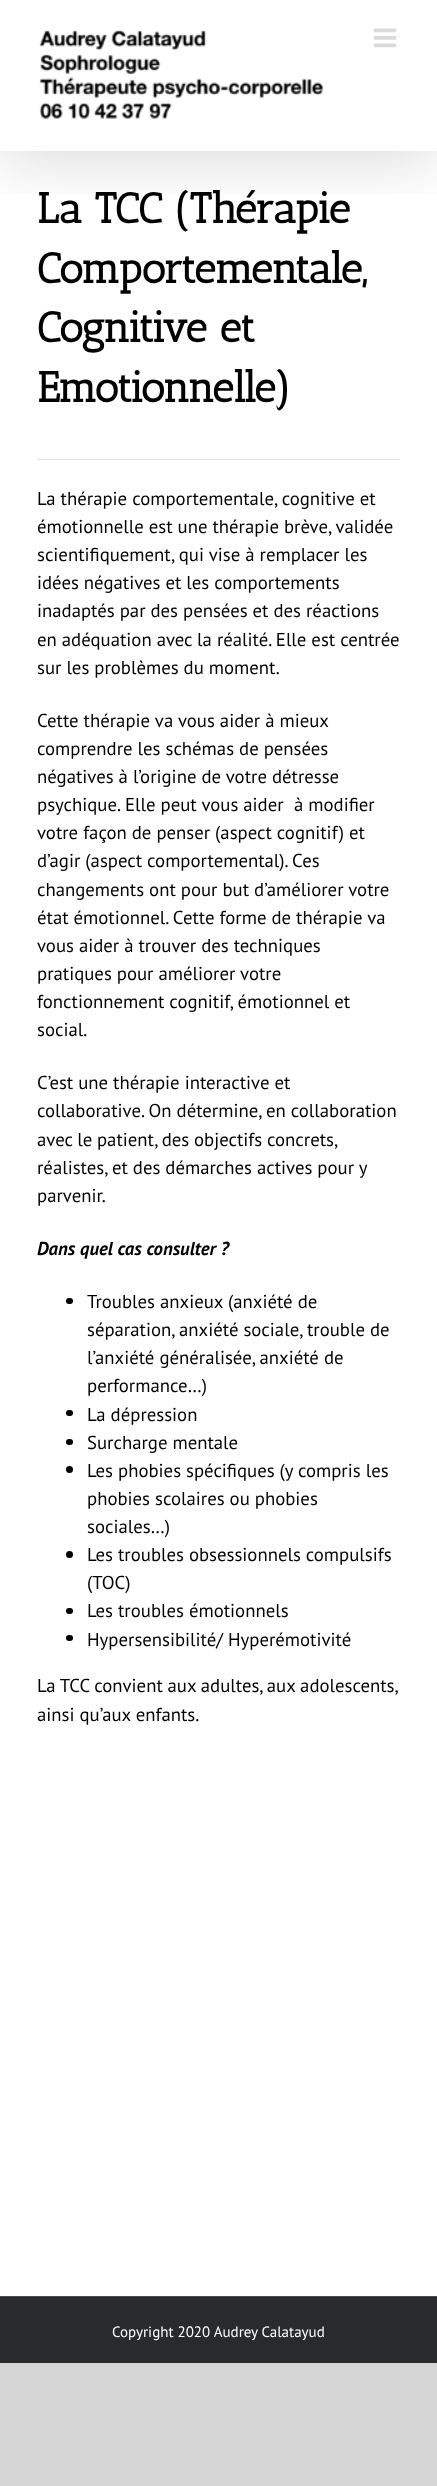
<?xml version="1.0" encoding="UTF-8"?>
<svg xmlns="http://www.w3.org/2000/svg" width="437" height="2486">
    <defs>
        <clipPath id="clip1"><rect x="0" y="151" width="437" height="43"/></clipPath>
        <filter id="blur1" x="-50%" y="-200%" width="200%" height="500%"><feGaussianBlur stdDeviation="31"/></filter>
    </defs>
    <rect width="100%" height="100%" fill="#D7D6D6"/>
    <rect x="0" y="0" width="437" height="2296" fill="#FFFFFF"/>
    <g clip-path="url(#clip1)">
        <rect x="3" y="15" width="432" height="146" fill="#000000" fill-opacity="0.14" filter="url(#blur1)"/>
    </g>
    <image x="39" y="30" width="285" height="89" href="img_01.png"/>
    <image x="373" y="28" width="24" height="20" href="img_02.png"/>
    <rect x="38" y="459" width="362" height="1" fill="#E0DEDE"/>
    <text font-family="Antic Slab" font-size="42.5" font-weight="700" fill="#000000">
        <tspan x="37" y="223">La TCC (Thérapie</tspan>
        <tspan x="37" y="283">Comportementale,</tspan>
        <tspan x="37" y="342">Cognitive et</tspan>
        <tspan x="37" y="402">Emotionnelle)</tspan>
    </text>
    <text font-family="PT Sans" font-size="18.75" fill="#000000">
        <tspan x="37" y="505">La thérapie comportementale, cognitive et</tspan>
        <tspan x="37" y="533">émotionnelle est une thérapie brève, validée</tspan>
        <tspan x="37" y="561">scientifiquement, qui vise à remplacer les</tspan>
        <tspan x="37" y="589">idées négatives et les comportements</tspan>
        <tspan x="37" y="617">inadaptés par des pensées et des réactions</tspan>
        <tspan x="37" y="646">en adéquation avec la réalité. Elle est centrée</tspan>
        <tspan x="37" y="674">sur les problèmes du moment.</tspan>
    </text>
    <text font-family="PT Sans" font-size="18.75" fill="#000000">
        <tspan x="37" y="727">Cette thérapie va vous aider à mieux</tspan>
        <tspan x="37" y="755">comprendre les schémas de pensées</tspan>
        <tspan x="37" y="783">négatives à l’origine de votre détresse</tspan>
        <tspan x="37" y="811">psychique.</tspan>
    </text>
    <text x="125" y="811" font-family="PT Sans" font-size="18.75" fill="#000000">Elle peut vous aider</text>
    <text x="294" y="811" font-family="PT Sans" font-size="18.75" fill="#000000">à modifier</text>
    <text font-family="PT Sans" font-size="18.75" fill="#000000">
        <tspan x="37" y="839">votre façon de penser (aspect cognitif) et</tspan>
        <tspan x="37" y="867">d’agir (aspect comportemental). Ces</tspan>
        <tspan x="37" y="896">changements ont pour but d’améliorer votre</tspan>
        <tspan x="37" y="924">état émotionnel. Cette forme de thérapie va</tspan>
        <tspan x="37" y="952">vous aider à trouver des techniques</tspan>
        <tspan x="37" y="980">pratiques pour améliorer votre</tspan>
        <tspan x="37" y="1008">fonctionnement cognitif, émotionnel et</tspan>
        <tspan x="37" y="1036">social.</tspan>
    </text>
    <text font-family="PT Sans" font-size="18.75" fill="#000000">
        <tspan x="37" y="1089">C’est une thérapie interactive et</tspan>
        <tspan x="37" y="1117">collaborative. On détermine, en collaboration</tspan>
        <tspan x="37" y="1146" word-spacing="-0.25">avec le patient, des objectifs concrets,</tspan>
        <tspan x="37" y="1174">réalistes, et des démarches actives pour y</tspan>
        <tspan x="37" y="1202">parvenir.</tspan>
    </text>
    <text x="37" y="1255" font-family="PT Sans" font-size="18.75" font-weight="700" font-style="italic" fill="#000000">Dans quel cas consulter ?</text>
    <rect x="66" y="1298" width="7" height="6" rx="3" fill="#000000"/>
    <text font-family="PT Sans" font-size="18.75" fill="#000000">
        <tspan x="87" y="1308">Troubles anxieux (anxiété de</tspan>
        <tspan x="87" y="1336">séparation, anxiété sociale, trouble de</tspan>
        <tspan x="87" y="1364">l’anxiété généralisée, anxiété de</tspan>
        <tspan x="87" y="1392">performance…)</tspan>
    </text>
    <rect x="66" y="1410" width="7" height="6" rx="3" fill="#000000"/>
    <text x="87" y="1421" font-family="PT Sans" font-size="18.75" fill="#000000">La dépression</text>
    <rect x="66" y="1439" width="7" height="6" rx="3" fill="#000000"/>
    <text x="87" y="1449" font-family="PT Sans" font-size="18.75" fill="#000000">Surcharge mentale</text>
    <circle cx="69.5" cy="1469.5" r="3.5" fill="#000000"/>
    <text font-family="PT Sans" font-size="18.75" fill="#000000">
        <tspan x="87" y="1477">Les phobies spécifiques (y compris les</tspan>
        <tspan x="87" y="1505">phobies scolaires ou phobies</tspan>
        <tspan x="87" y="1533">sociales…)</tspan>
    </text>
    <circle cx="69.5" cy="1554.5" r="3.5" fill="#000000"/>
    <text font-family="PT Sans" font-size="18.75" fill="#000000">
        <tspan x="87" y="1561">Les troubles obsessionnels compulsifs</tspan>
        <tspan x="87" y="1589">(TOC)</tspan>
    </text>
    <rect x="66" y="1608" width="7" height="6" rx="3" fill="#000000"/>
    <text x="87" y="1617" font-family="PT Sans" font-size="18.75" fill="#000000">Les troubles émotionnels</text>
    <rect x="66" y="1635" width="7" height="6" rx="3" fill="#000000"/>
    <text x="87" y="1646" font-family="PT Sans" font-size="18.75" fill="#000000">Hypersensibilité/ Hyperémotivité</text>
    <text font-family="PT Sans" font-size="18.75" fill="#000000">
        <tspan x="37" y="1692" word-spacing="-0.25">La TCC convient aux adultes, aux adolescents,</tspan>
        <tspan x="37" y="1721">ainsi qu’aux enfants.</tspan>
    </text>
    <rect x="0" y="2297" width="437" height="66" fill="#282A2B"/>
    <rect x="0" y="2296" width="437" height="1" fill="#4B4C4D"/>
    <text x="112" y="2337" font-family="PT Sans" font-size="15" fill="#FFFFFF">Copyright 2020 Audrey Calatayud</text>
</svg>
